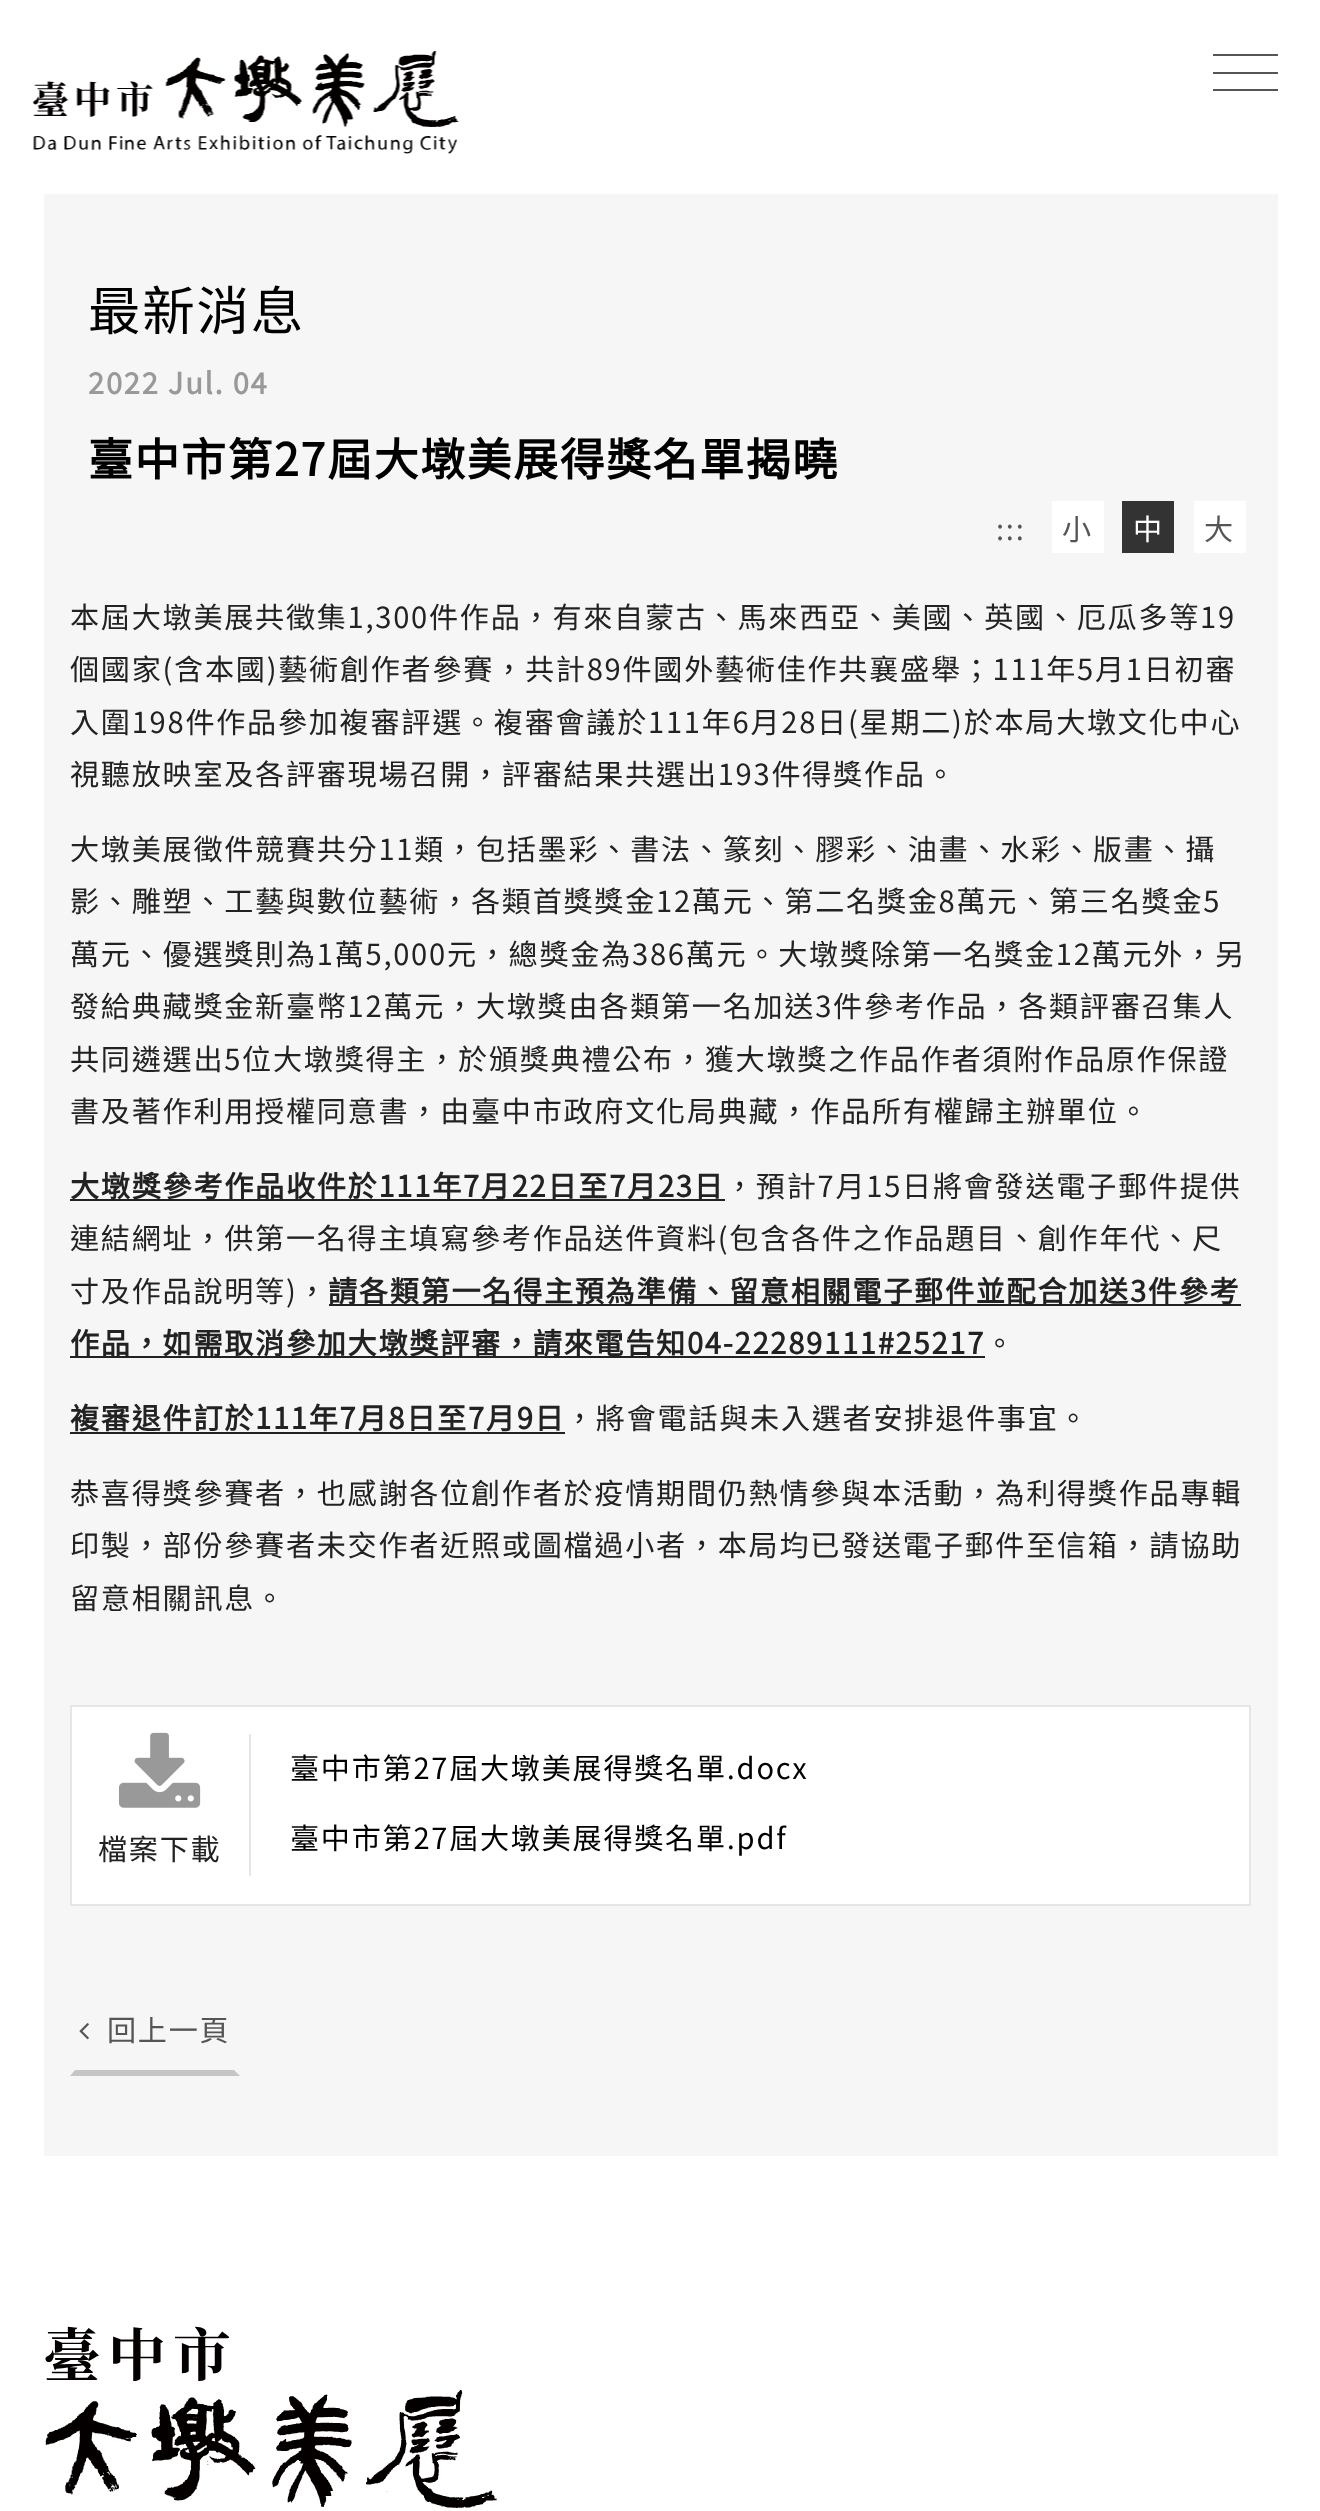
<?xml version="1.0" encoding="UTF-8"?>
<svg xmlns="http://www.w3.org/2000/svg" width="1320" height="2511">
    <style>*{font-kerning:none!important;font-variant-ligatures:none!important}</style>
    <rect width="100%" height="100%" fill="#FFFFFF"/>
    <image x="32" y="51" width="427" height="103" href="img_01.png"/>
    <rect x="1213" y="54" width="65" height="2" fill="#555555"/>
    <rect x="1213" y="72" width="65" height="2" fill="#555555"/>
    <rect x="1213" y="89" width="65" height="2" fill="#555555"/>
    <rect x="44" y="194" width="1234" height="1962" fill="#F6F6F6"/>
    <text x="88" y="330" font-family="Noto Sans TC" font-size="52.5" font-weight="100" letter-spacing="1.75" fill="#000000">最新消息</text>
    <text x="88" y="394" font-family="Noto Sans TC" font-size="29.1" font-weight="700" letter-spacing="1.75" fill="#999999">2022 Jul. 04</text>
    <text x="88" y="476" font-family="Noto Sans TC" font-size="44.75" font-weight="700" letter-spacing="1.75" fill="#000000">臺中市第27屆大墩美展得獎名單揭曉</text>
    <text x="996" y="540" font-family="Noto Sans TC" font-size="29.1" font-weight="100" letter-spacing="1.75" fill="#555555">:::</text>
    <rect x="1052" y="501" width="52" height="52" fill="#FFFFFF"/>
    <text x="1062" y="540" font-family="Noto Sans TC" font-size="29.1" font-weight="100" letter-spacing="1.75" fill="#555555">小</text>
    <rect x="1122" y="501" width="52" height="52" fill="#333333"/>
    <text x="1133" y="540" font-family="Noto Sans TC" font-size="29.1" font-weight="100" letter-spacing="1.75" fill="#FFFFFF">中</text>
    <rect x="1194" y="501" width="52" height="52" fill="#FFFFFF"/>
    <text x="1204" y="540" font-family="Noto Sans TC" font-size="29.1" font-weight="100" letter-spacing="1.75" fill="#555555">大</text>
    <text font-family="Noto Sans TC" font-size="29.1" font-weight="100" letter-spacing="1.75" fill="#222222">
        <tspan x="70" y="628">本屆大墩美展共徵集1,300件作品，有來自蒙古、馬來西亞、美國、英國、厄瓜多等19</tspan>
        <tspan x="70" y="680">個國家(含本國)藝術創作者參賽，共計89件國外藝術佳作共襄盛舉；111年5月1日初審</tspan>
        <tspan x="70" y="733">入圍198件作品參加複審評選。複審會議於111年6月28日(星期二)於本局大墩文化中心</tspan>
        <tspan x="70" y="785">視聽放映室及各評審現場召開，評審結果共選出193件得獎作品。</tspan>
    </text>
    <text font-family="Noto Sans TC" font-size="29.1" font-weight="100" letter-spacing="1.75" fill="#222222">
        <tspan x="70" y="860">大墩美展徵件競賽共分11類，包括墨彩、書法、篆刻、膠彩、油畫、水彩、版畫、攝</tspan>
        <tspan x="70" y="912">影、雕塑、工藝與數位藝術，各類首獎獎金12萬元、第二名獎金8萬元、第三名獎金5</tspan>
        <tspan x="70" y="965">萬元、優選獎則為1萬5,000元，總獎金為386萬元。大墩獎除第一名獎金12萬元外，另</tspan>
        <tspan x="70" y="1017">發給典藏獎金新臺幣12萬元，大墩獎由各類第一名加送3件參考作品，各類評審召集人</tspan>
        <tspan x="70" y="1070">共同遴選出5位大墩獎得主，於頒獎典禮公布，獲大墩獎之作品作者須附作品原作保證</tspan>
        <tspan x="70" y="1122">書及著作利用授權同意書，由臺中市政府文化局典藏，作品所有權歸主辦單位。</tspan>
    </text>
    <rect x="70" y="1199" width="655" height="2" fill="#222222"/>
    <text x="70" y="1197" font-family="Noto Sans TC" font-size="29.1" font-weight="700" letter-spacing="1.75" fill="#222222">大墩獎參考作品收件於111年7月22日至7月23日</text>
    <text x="725" y="1197" font-family="Noto Sans TC" font-size="29.1" font-weight="100" letter-spacing="1.75" fill="#222222">，預計7月15日將會發送電子郵件提供</text>
    <text font-family="Noto Sans TC" font-size="29.1" font-weight="100" letter-spacing="1.75" fill="#222222">
        <tspan x="70" y="1249">連結網址，供第一名得主填寫參考作品送件資料(包含各件之作品題目、創作年代、尺</tspan>
        <tspan x="70" y="1302">寸及作品說明等)，</tspan>
    </text>
    <rect x="329" y="1304" width="912" height="2" fill="#222222"/>
    <text x="328" y="1302" font-family="Noto Sans TC" font-size="29.1" font-weight="700" letter-spacing="1.75" fill="#222222">請各類第一名得主預為準備、留意相關電子郵件並配合加送3件參考</text>
    <rect x="70" y="1356" width="915" height="2" fill="#222222"/>
    <text x="70" y="1354" font-family="Noto Sans TC" font-size="29.1" font-weight="700" letter-spacing="1.75" fill="#222222">作品，如需取消參加大墩獎評審，請來電告知04-22289111#25217</text>
    <text x="985" y="1354" font-family="Noto Sans TC" font-size="29.1" font-weight="100" letter-spacing="1.75" fill="#222222">。</text>
    <text x="70" y="1429" font-family="Noto Sans TC" font-size="29.1" font-weight="700" letter-spacing="1.75" fill="#222222">複審退件訂於111年7月8日至7月9日</text>
    <rect x="70" y="1432" width="495" height="2" fill="#222222"/>
    <text x="565" y="1429" font-family="Noto Sans TC" font-size="29.1" font-weight="100" letter-spacing="1.75" fill="#222222">，將會電話與未入選者安排退件事宜。</text>
    <text font-family="Noto Sans TC" font-size="29.1" font-weight="100" letter-spacing="1.75" fill="#222222">
        <tspan x="70" y="1504">恭喜得獎參賽者，也感謝各位創作者於疫情期間仍熱情參與本活動，為利得獎作品專輯</tspan>
        <tspan x="70" y="1556">印製，部份參賽者未交作者近照或圖檔過小者，本局均已發送電子郵件至信箱，請協助</tspan>
        <tspan x="70" y="1609">留意相關訊息。</tspan>
    </text>
    <rect x="71" y="1706" width="1179" height="199" fill="#FFFFFF" stroke="#E6E6E6" stroke-width="2"/>
    <rect x="249" y="1734" width="2" height="142" fill="#E6E6E6"/>
    <image x="119" y="1732" width="82" height="76" href="img_02.png"/>
    <text x="98" y="1860" font-family="Noto Sans TC" font-size="29.1" font-weight="100" letter-spacing="1.75" fill="#222222">檔案下載</text>
    <text x="290" y="1779" font-family="Noto Sans TC" font-size="29.1" font-weight="100" letter-spacing="1.75" fill="#000000">臺中市第27屆大墩美展得獎名單.docx</text>
    <text x="290" y="1849" font-family="Noto Sans TC" font-size="29.1" font-weight="100" letter-spacing="1.75" fill="#000000">臺中市第27屆大墩美展得獎名單.pdf</text>
    <path d="M 240 2076 H 70 L 75 2070 H 234 Z" fill="#C5C5C5"/>
    <image x="79" y="2023" width="10" height="17" href="img_03.png"/>
    <text x="107" y="2041" font-family="Noto Sans TC" font-size="29.1" font-weight="100" letter-spacing="1.75" fill="#555555">回上一頁</text>
    <image x="45" y="2326" width="452" height="182" href="img_04.png"/>
</svg>
